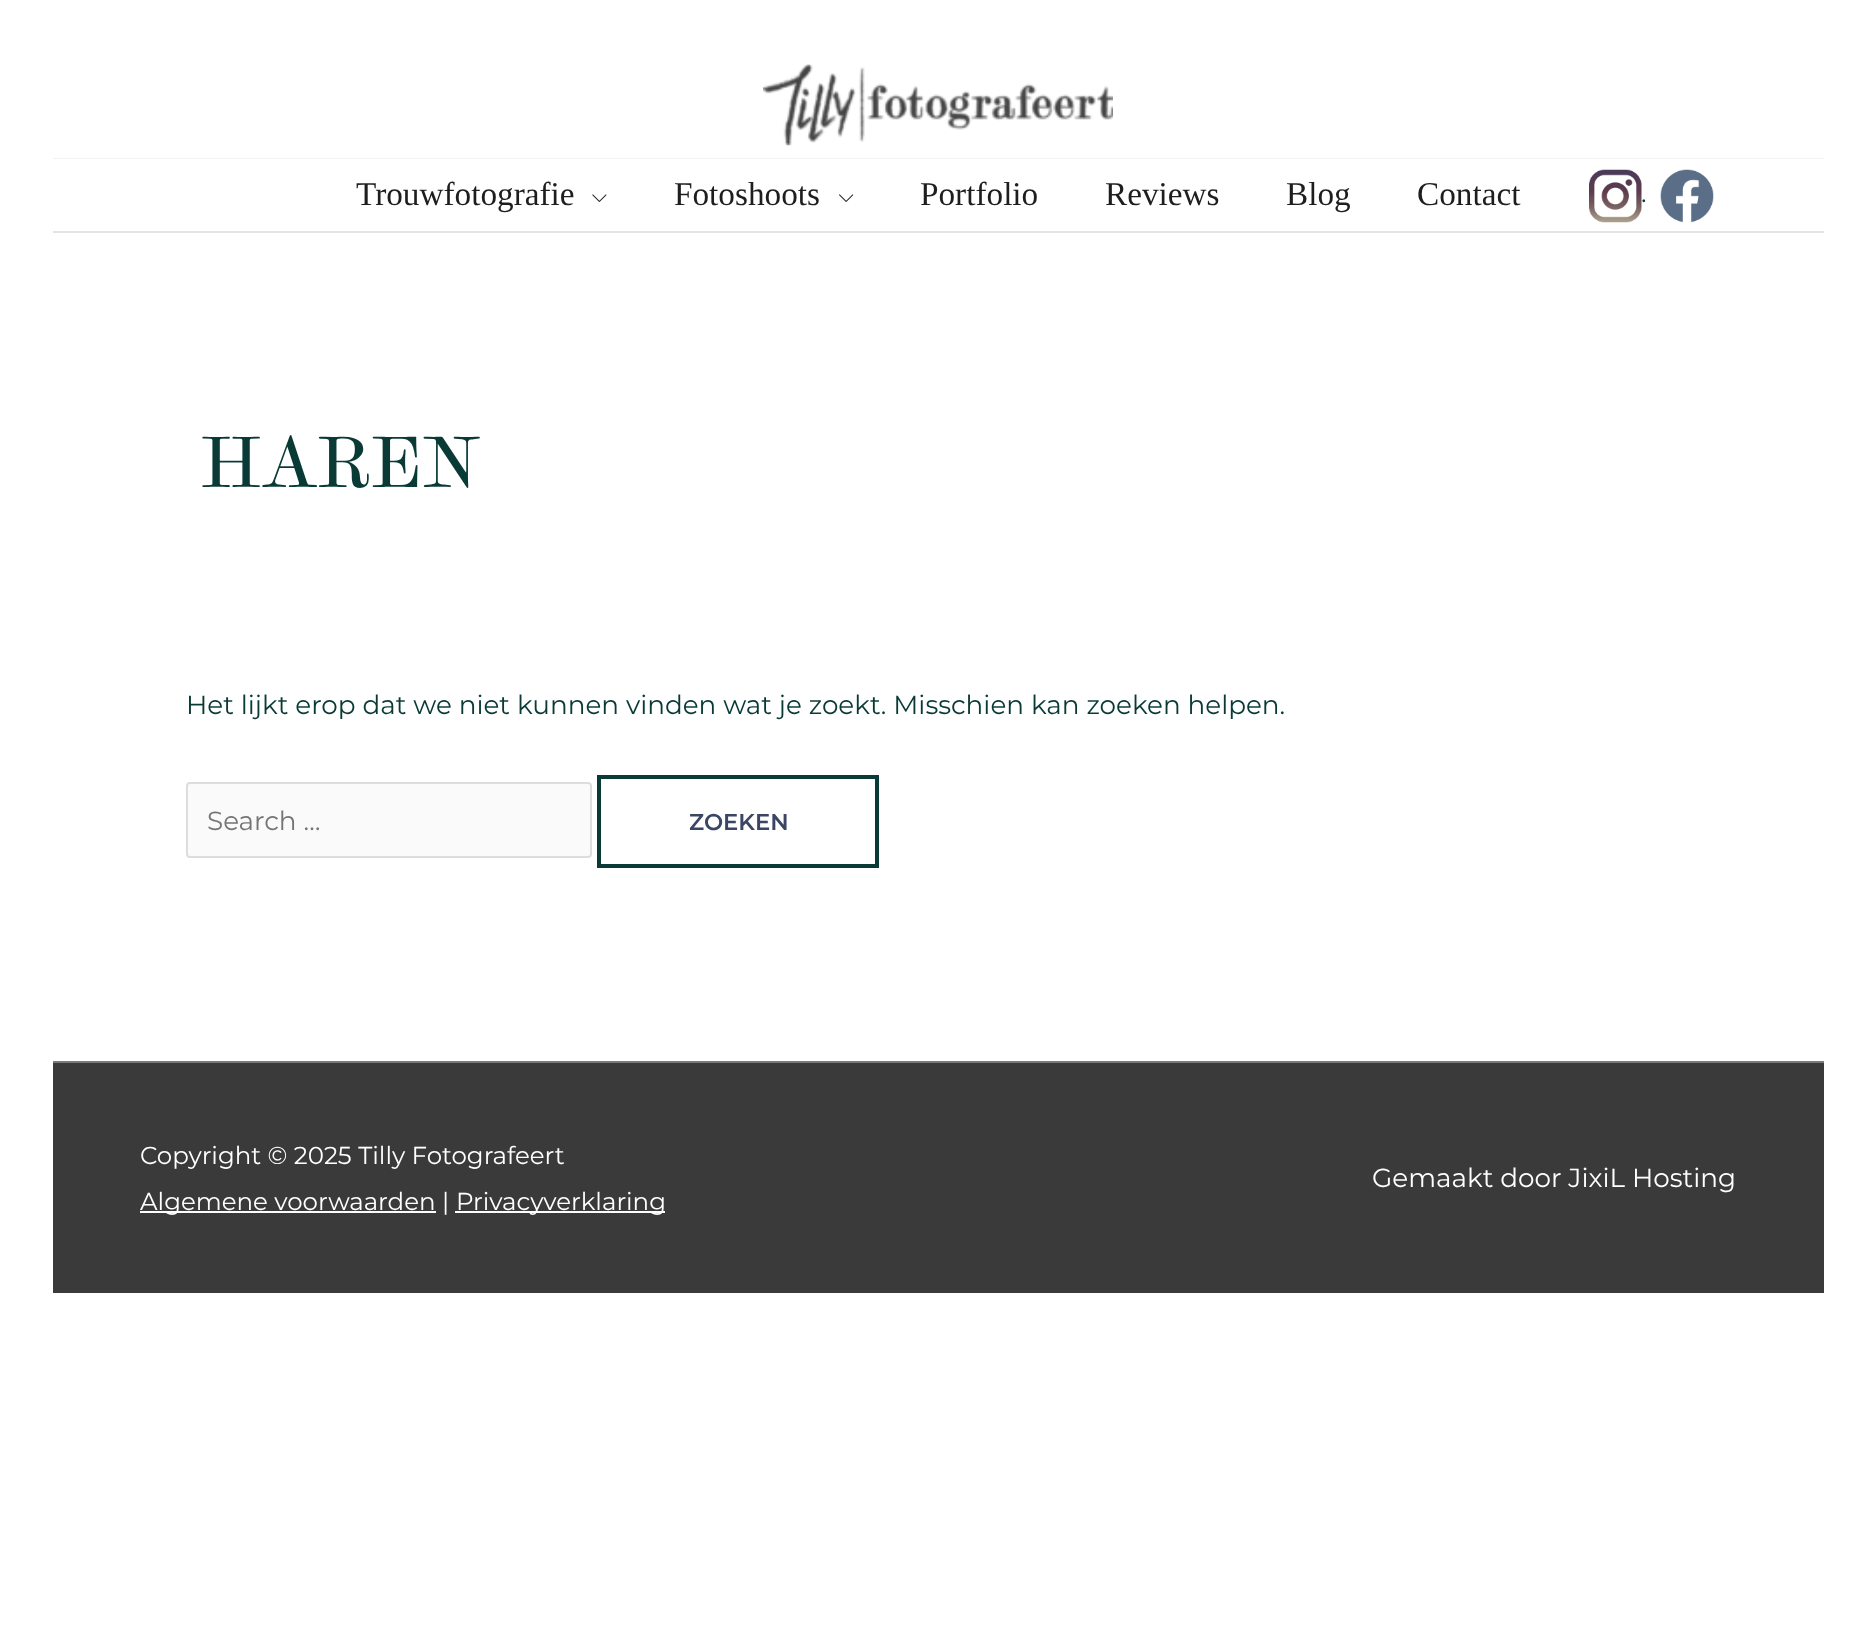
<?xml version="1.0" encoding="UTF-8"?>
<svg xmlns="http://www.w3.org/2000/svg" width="1876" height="1643">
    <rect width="100%" height="100%" fill="#FFFFFF"/>
    <rect x="53" y="158" width="1771" height="1" fill="#F2F2F2"/>
    <image x="763" y="64" width="350" height="82" href="img_01.png"/>
    <rect x="53" y="231" width="1771" height="2" fill="#E4E4E4"/>
    <text x="356" y="205" font-family="Liberation Serif" font-size="33.25" fill="#1E1E1E">Trouwfotografie</text>
    <image x="592" y="194" width="15" height="8" href="img_02.png"/>
    <text x="674" y="205" font-family="Liberation Serif" font-size="33.25" fill="#1E1E1E">Fotoshoots</text>
    <image x="839" y="194" width="15" height="8" href="img_03.png"/>
    <text x="920" y="205" font-family="Liberation Serif" font-size="33.25" fill="#1E1E1E">Portfolio</text>
    <text x="1105" y="205" font-family="Liberation Serif" font-size="33.25" fill="#1E1E1E">Reviews</text>
    <text x="1286" y="205" font-family="Liberation Serif" font-size="33.25" fill="#1E1E1E">Blog</text>
    <text x="1417" y="205" font-family="Liberation Serif" font-size="33.25" fill="#1E1E1E">Contact</text>
    <image x="1589" y="169" width="53" height="54" href="img_04.png"/>
    <text x="1641" y="202" font-family="Montserrat" font-size="26.25" fill="#093A35">.</text>
    <image x="1660" y="169" width="54" height="54" href="img_05.png"/>
    <text x="201" y="487" font-family="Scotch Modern" font-size="70" fill="#093A35">HAREN</text>
    <text x="186" y="714" font-family="Montserrat" font-size="26.25" fill="#093A35">Het lijkt erop dat we niet kunnen vinden wat je zoekt. Misschien kan zoeken helpen.</text>
    <rect x="187" y="783" width="404" height="74" rx="3" fill="#FAFAFA" stroke="#DDDDDD" stroke-width="2"/>
    <text x="207" y="830" font-family="Montserrat" font-size="26.25" fill="#757575">Search …</text>
    <rect x="599" y="777" width="278" height="89" fill="none" stroke="#093A35" stroke-width="4"/>
    <text x="689" y="830" font-family="Montserrat" font-size="22.75" font-weight="600" fill="#3A4664">ZOEKEN</text>
    <rect x="53" y="1063" width="1771" height="230" fill="#3A3A3A"/>
    <rect x="53" y="1061" width="1771" height="2" fill="#7A7A7A"/>
    <text x="140" y="1164" font-family="Montserrat" font-size="24.5" fill="#FFFFFF">Copyright © 2025 Tilly Fotografeert</text>
    <rect x="140" y="1211" width="296" height="2" fill="#FFFFFF"/>
    <text x="140" y="1210" font-family="Montserrat" font-size="24.5" fill="#FFFFFF">Algemene voorwaarden |</text>
    <rect x="455" y="1211" width="210" height="2" fill="#FFFFFF"/>
    <text x="456" y="1210" font-family="Montserrat" font-size="24.5" fill="#FFFFFF">Privacyverklaring</text>
    <text x="1372" y="1187" font-family="Montserrat" font-size="26.25" fill="#FFFFFF">Gemaakt door JixiL Hosting</text>
</svg>
